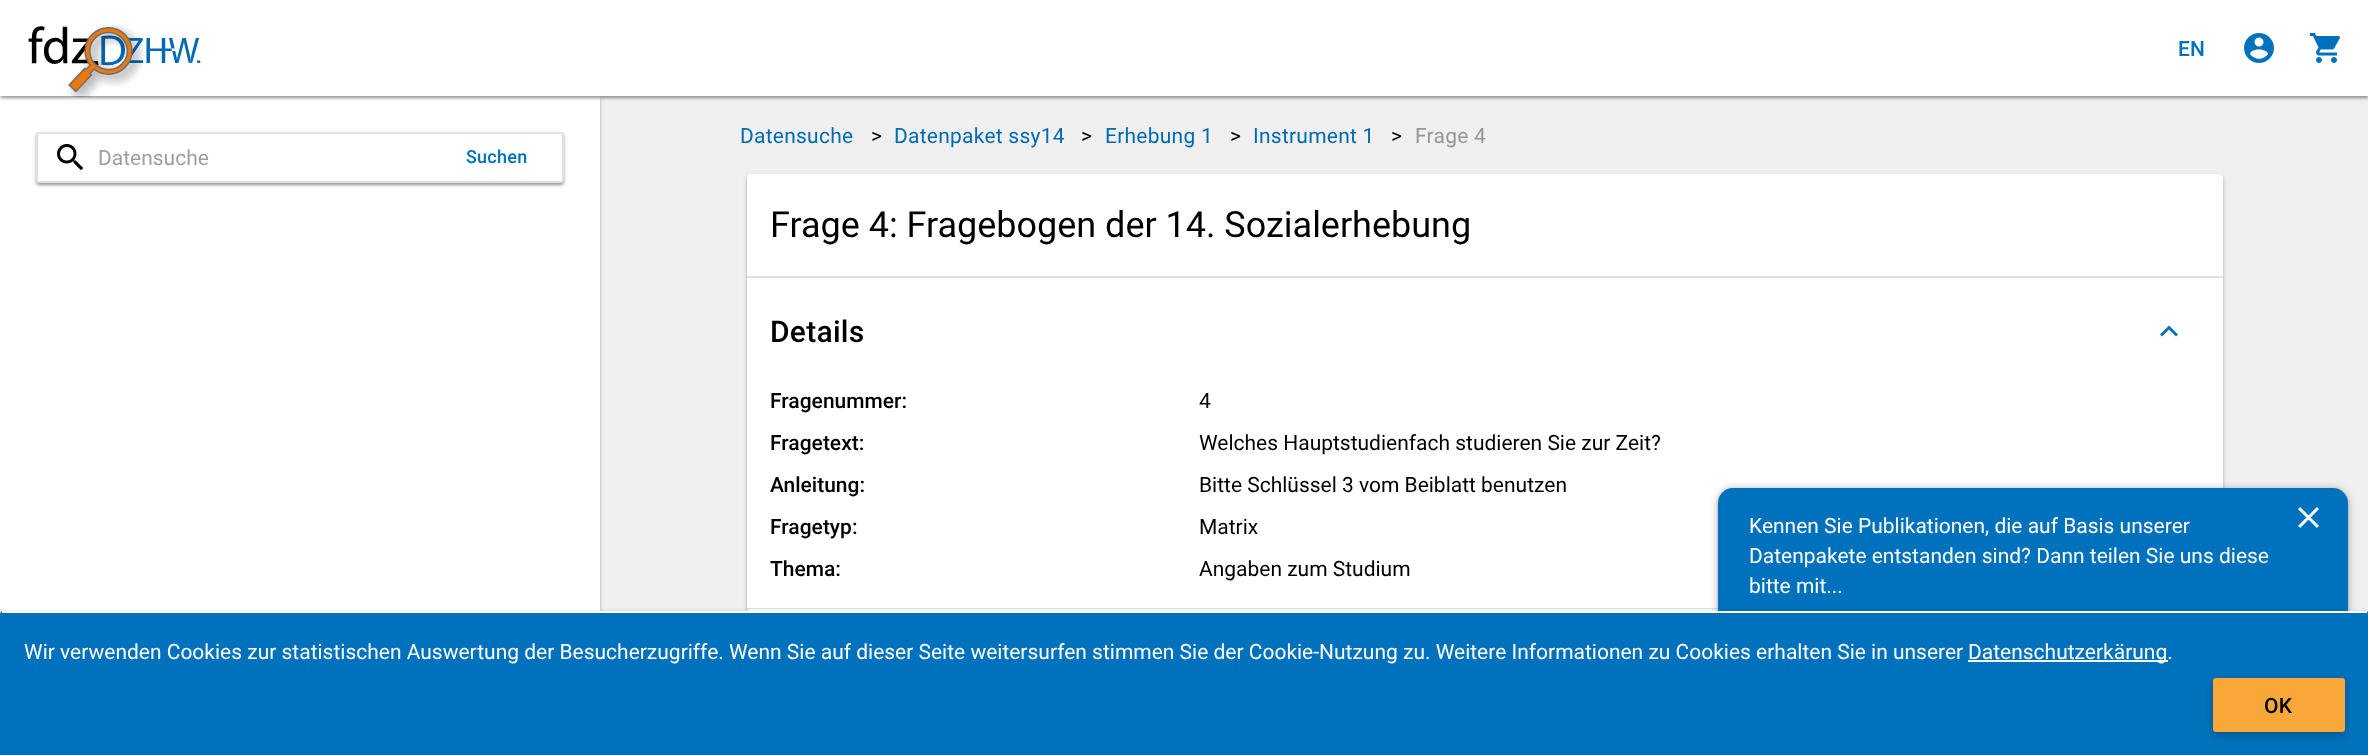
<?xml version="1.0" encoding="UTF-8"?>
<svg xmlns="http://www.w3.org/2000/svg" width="2368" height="755">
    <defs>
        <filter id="blur1" x="-50%" y="-200%" width="200%" height="500%"><feGaussianBlur stdDeviation="1"/></filter>
        <filter id="blur2" x="-50%" y="-200%" width="200%" height="500%"><feGaussianBlur stdDeviation="2"/></filter>
        <clipPath id="clip1"><path d="M 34 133 H 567 V 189 H 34 Z M 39 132 H 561 C 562.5 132 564 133.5 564 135 V 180 C 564 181.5 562.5 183 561 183 H 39 C 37.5 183 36 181.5 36 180 V 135 C 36 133.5 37.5 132 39 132 Z" clip-rule="evenodd"/></clipPath>
        <clipPath id="clip2"><path d="M 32 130 H 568 V 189 H 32 Z M 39 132 H 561 C 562.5 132 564 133.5 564 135 V 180 C 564 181.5 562.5 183 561 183 H 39 C 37.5 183 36 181.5 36 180 V 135 C 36 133.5 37.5 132 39 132 Z" clip-rule="evenodd"/></clipPath>
        <clipPath id="clip3"><path d="M 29 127 H 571 V 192 H 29 Z M 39 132 H 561 C 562.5 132 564 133.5 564 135 V 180 C 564 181.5 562.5 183 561 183 H 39 C 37.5 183 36 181.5 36 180 V 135 C 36 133.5 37.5 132 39 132 Z" clip-rule="evenodd"/></clipPath>
        <filter id="blur3" x="-50%" y="-200%" width="200%" height="500%"><feGaussianBlur stdDeviation="4"/></filter>
    </defs>
    <rect width="100%" height="100%" fill="#F0F0F0"/>
    <rect x="0" y="98" width="600" height="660" fill="#000000" fill-opacity="0.14" filter="url(#blur1)"/>
    <rect x="0" y="98" width="600" height="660" fill="#000000" fill-opacity="0.2" filter="url(#blur2)"/>
    <rect x="0" y="96" width="600" height="518" fill="#FFFFFF"/>
    <rect x="2" y="5" width="2365" height="93" fill="#000000" fill-opacity="0.12" filter="url(#blur1)"/>
    <rect x="0" y="2" width="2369" height="96" fill="#000000" fill-opacity="0.14" filter="url(#blur1)"/>
    <rect x="0" y="2" width="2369" height="96" fill="#000000" fill-opacity="0.2" filter="url(#blur2)"/>
    <rect x="0" y="0" width="2368" height="96" fill="#FFFFFF"/>
    <image x="28" y="24" width="173" height="74" href="img_01.png"/>
    <text x="2178" y="56" font-family="Roboto" font-size="21" font-weight="500" letter-spacing="0.25" fill="#0071BC">EN</text>
    <image x="2244" y="33" width="30" height="30" href="img_02.png"/>
    <image x="2309" y="33" width="31" height="30" href="img_03.png"/>
    <g clip-path="url(#clip1)">
        <rect x="38" y="137" width="525" height="48" rx="1.5" fill="#000000" fill-opacity="0.12" filter="url(#blur1)"/>
    </g>
    <g clip-path="url(#clip2)">
        <rect x="36" y="134" width="528" height="51" rx="3" fill="#000000" fill-opacity="0.14" filter="url(#blur1)"/>
    </g>
    <g clip-path="url(#clip3)">
        <rect x="36" y="134" width="528" height="51" rx="3" fill="#000000" fill-opacity="0.2" filter="url(#blur2)"/>
    </g>
    <rect x="37" y="133" width="526" height="49" rx="2" fill="none" stroke="#000000" stroke-opacity="0.12" stroke-width="2"/>
    <image x="57" y="144" width="27" height="27" href="img_04.png"/>
    <text x="98" y="165" font-family="Roboto" font-size="21" fill="#9E9E9E">Datensuche</text>
    <text x="466" y="163" font-family="Roboto" font-size="18" font-weight="500" letter-spacing="0.25" fill="#0071BC">Suchen</text>
    <text x="740" y="143" font-family="Roboto" font-size="21" letter-spacing="0.25" fill="#006AB2">Datensuche</text>
    <text x="871" y="143" font-family="Roboto" font-size="21" letter-spacing="0.25" fill="#000000">&gt;</text>
    <text x="894" y="143" font-family="Roboto" font-size="21" letter-spacing="0.25" fill="#006AB2">Datenpaket ssy14</text>
    <text x="1081" y="143" font-family="Roboto" font-size="21" letter-spacing="0.25" fill="#000000">&gt;</text>
    <text x="1105" y="143" font-family="Roboto" font-size="21" letter-spacing="0.25" fill="#006AB2">Erhebung 1</text>
    <text x="1230" y="143" font-family="Roboto" font-size="21" letter-spacing="0.25" fill="#000000">&gt;</text>
    <text x="1253" y="143" font-family="Roboto" font-size="21" letter-spacing="0.25" fill="#006AB2">Instrument 1</text>
    <text x="1391" y="143" font-family="Roboto" font-size="21" letter-spacing="0.25" fill="#000000">&gt;</text>
    <text x="1415" y="143" font-family="Roboto" font-size="21" letter-spacing="0.25" fill="#979797">Frage 4</text>
    <rect x="747" y="176" width="1476" height="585" rx="3" fill="#000000" fill-opacity="0.14" filter="url(#blur1)"/>
    <rect x="747" y="176" width="1476" height="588" rx="3" fill="#000000" fill-opacity="0.2" filter="url(#blur2)"/>
    <path d="M 750 174 H 2220 C 2221.5 174 2223 175.5 2223 177 V 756 H 747 V 177 C 747 175.5 748.5 174 750 174 Z" fill="#FFFFFF"/>
    <text x="770" y="237" font-family="Roboto" font-size="36" fill="#000000">Frage 4: Fragebogen der 14. Sozialerhebung</text>
    <rect x="747" y="276" width="1476" height="2" fill="#E0E0E0"/>
    <text x="770" y="342" font-family="Roboto" font-size="30" font-weight="500" letter-spacing="0.25" fill="#000000">Details</text>
    <path d="M 2162 336.5 L 2160 334.5 L 2169 325.5 L 2178 334.5 L 2176 336.5 L 2169 329.5 Z" fill="#0071BC"/>
    <text x="770" y="408" font-family="Roboto" font-size="21" font-weight="500" fill="#000000">Fragenummer:</text>
    <text x="1199" y="408" font-family="Roboto" font-size="21" fill="#000000">4</text>
    <text x="770" y="450" font-family="Roboto" font-size="21" font-weight="500" fill="#000000">Fragetext:</text>
    <text x="1199" y="450" font-family="Roboto" font-size="21" fill="#000000">Welches Hauptstudienfach studieren Sie zur Zeit?</text>
    <text x="770" y="492" font-family="Roboto" font-size="21" font-weight="500" fill="#000000">Anleitung:</text>
    <text x="1199" y="492" font-family="Roboto" font-size="21" fill="#000000">Bitte Schlüssel 3 vom Beiblatt benutzen</text>
    <text x="770" y="534" font-family="Roboto" font-size="21" font-weight="500" fill="#000000">Fragetyp:</text>
    <text x="1199" y="534" font-family="Roboto" font-size="21" fill="#000000">Matrix</text>
    <text x="770" y="576" font-family="Roboto" font-size="21" font-weight="500" fill="#000000">Thema:</text>
    <text x="1199" y="576" font-family="Roboto" font-size="21" fill="#000000">Angaben zum Studium</text>
    <rect x="747" y="608" width="971" height="2" fill="#E0E0E0"/>
    <path d="M 750 609 H 2220 C 2221.5 609 2223 610.5 2223 612 V 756 H 747 V 612 C 747 610.5 748.5 609 750 609 Z" fill="#FFFFFF"/>
    <rect x="1718" y="489" width="630" height="137" rx="15" fill="#000000" fill-opacity="0.2" filter="url(#blur1)"/>
    <rect x="1718" y="489" width="630" height="137" rx="15" fill="#000000" fill-opacity="0.3" filter="url(#blur3)"/>
    <rect x="1718" y="488" width="630" height="136" rx="15" fill="#0071BC"/>
    <text font-family="Roboto" font-size="21" fill="#FFFFFF">
        <tspan x="1749" y="533">Kennen Sie Publikationen, die auf Basis unserer</tspan>
        <tspan x="1749" y="563">Datenpakete entstanden sind? Dann teilen Sie uns diese</tspan>
        <tspan x="1749" y="593">bitte mit...</tspan>
    </text>
    <image x="2298" y="507" width="21" height="21" href="img_05.png"/>
    <rect x="0" y="612" width="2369" height="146" rx="3" fill="#000000" fill-opacity="0.2" filter="url(#blur2)"/>
    <path d="M 3 611 H 2366 C 2367.5 611 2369 612.5 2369 614 V 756 H 0 V 614 C 0 612.5 1.5 611 3 611 Z" fill="#0071BC"/>
    <rect x="2" y="611" width="2365" height="2" fill="#FFFFFF"/>
    <text x="24" y="659" font-family="Roboto" font-size="21" fill="#FFFFFF">Wir verwenden Cookies zur statistischen Auswertung der Besucherzugriffe. Wenn Sie auf dieser Seite weitersurfen stimmen Sie der Cookie-Nutzung zu. Weitere Informationen zu Cookies erhalten Sie in unserer</text>
    <rect x="1968" y="660" width="200" height="2" fill="#FFFFFF"/>
    <text x="1968" y="659" font-family="Roboto" font-size="21" fill="#FFFFFF">Datenschutzerkärung.</text>
    <rect x="2213" y="681" width="132" height="54" rx="3" fill="#000000" fill-opacity="0.26" filter="url(#blur3)"/>
    <rect x="2213" y="678" width="132" height="54" rx="3" fill="#F7A839"/>
    <text x="2264" y="713" font-family="Roboto" font-size="21" font-weight="500" letter-spacing="0.25" fill="#000000">OK</text>
</svg>
